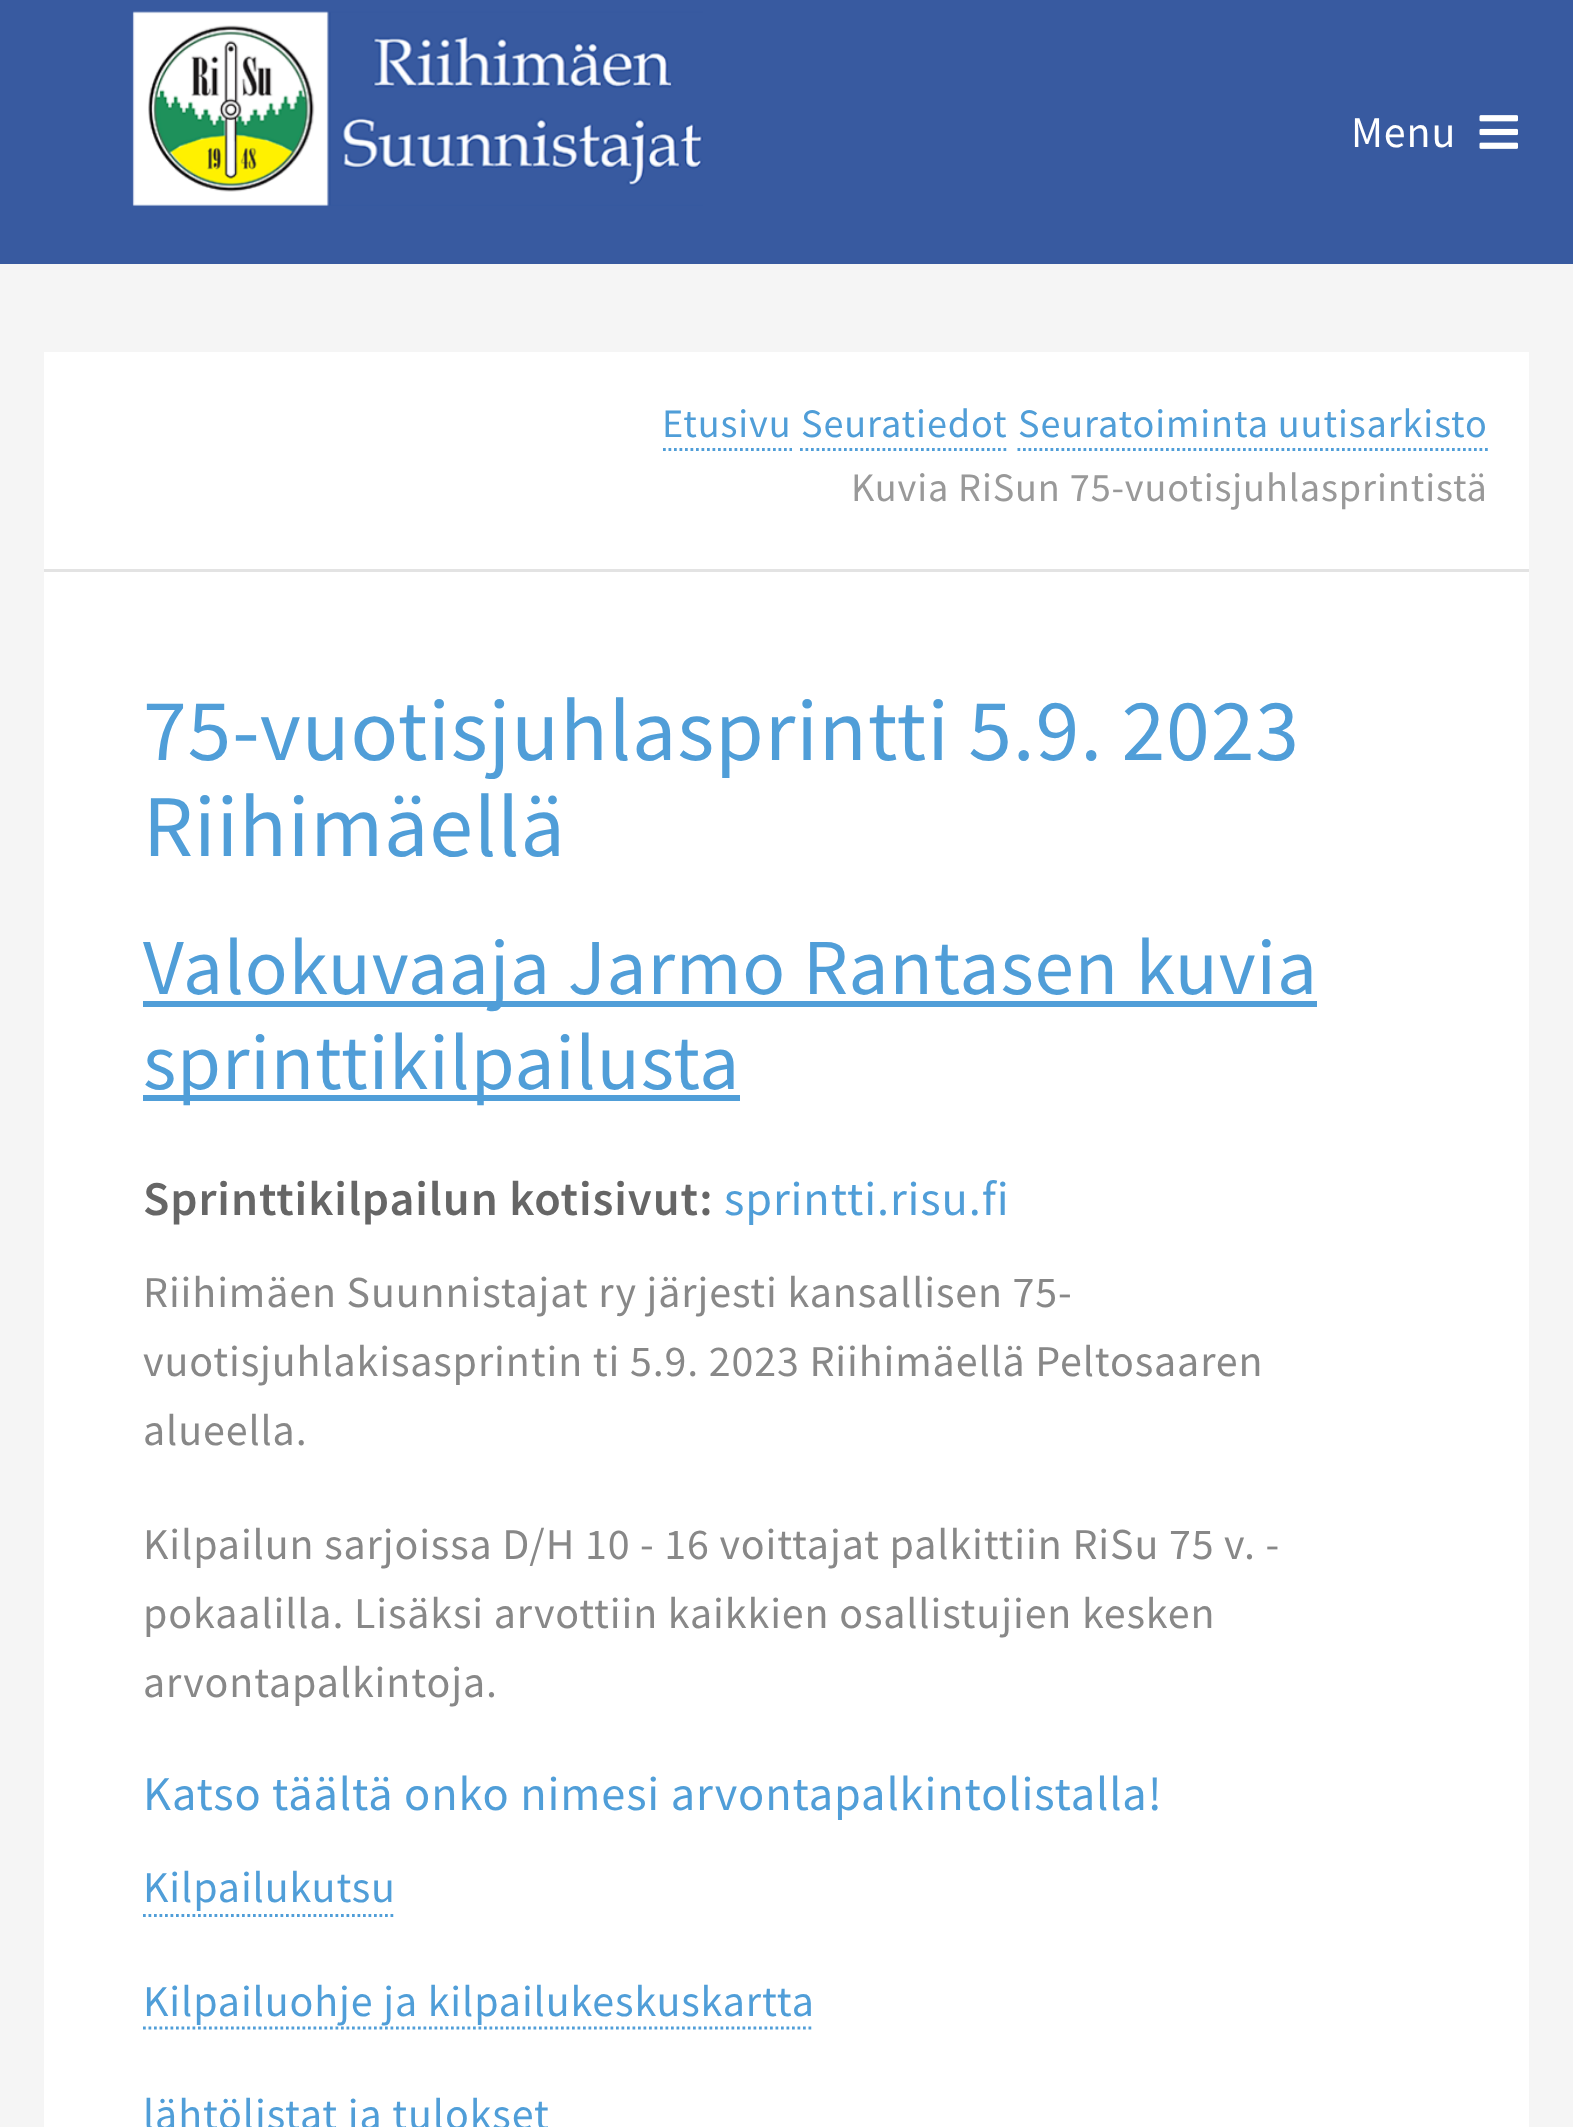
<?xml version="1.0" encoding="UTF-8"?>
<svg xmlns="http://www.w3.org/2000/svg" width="1573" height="2127">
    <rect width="100%" height="100%" fill="#F5F5F5"/>
    <rect x="0" y="0" width="1573" height="264" fill="#385AA0"/>
    <image x="132" y="11" width="571" height="195" href="img_01.png"/>
    <text x="1351" y="147" font-family="Source Sans Pro" font-size="44" letter-spacing="0.88" fill="#FFFFFF">Menu</text>
    <image x="1479" y="115" width="39" height="34" href="img_02.png"/>
    <rect x="44" y="352" width="1485" height="1775" fill="#FFFFFF"/>
    <text x="662" y="437" font-family="Source Sans Pro" font-size="40.3" letter-spacing="0.88" fill="#509ED8">Etusivu</text>
    <path d="M 663 449.5 H 792" fill="none" stroke="#509ED8" stroke-width="2.8" stroke-dasharray="2.75 2.75"/>
    <text x="801" y="437" font-family="Source Sans Pro" font-size="40.3" letter-spacing="0.88" fill="#509ED8">Seuratiedot</text>
    <path d="M 800 449.5 H 1006.5" fill="none" stroke="#509ED8" stroke-width="2.8" stroke-dasharray="2.75 2.75"/>
    <text x="1018" y="437" font-family="Source Sans Pro" font-size="40.3" letter-spacing="0.88" fill="#509ED8">Seuratoiminta uutisarkisto</text>
    <path d="M 1017.5 449.5 H 1488" fill="none" stroke="#509ED8" stroke-width="2.8" stroke-dasharray="2.75 2.75"/>
    <text x="851" y="501" font-family="Source Sans Pro" font-size="40.3" letter-spacing="0.88" fill="#999999">Kuvia RiSun 75-vuotisjuhlasprintistä</text>
    <rect x="44" y="569" width="1485" height="3" fill="#E3E3E3"/>
    <text font-family="Source Sans Pro" font-size="88" letter-spacing="0.88" fill="#509ED8">
        <tspan x="143" y="760">75-vuotisjuhlasprintti 5.9. 2023</tspan>
        <tspan x="143" y="856">Riihimäellä</tspan>
    </text>
    <rect x="143" y="1001" width="1174" height="6" fill="#509ED8"/>
    <text x="143" y="994" font-family="Source Sans Pro" font-size="79.25" letter-spacing="0.88" fill="#509ED8">Valokuvaaja Jarmo Rantasen kuvia</text>
    <rect x="143" y="1095" width="597" height="6" fill="#509ED8"/>
    <text x="143" y="1089" font-family="Source Sans Pro" font-size="79.25" letter-spacing="0.88" fill="#509ED8">sprinttikilpailusta</text>
    <text x="143" y="1215" font-family="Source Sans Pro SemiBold" font-size="48.4" font-weight="600" letter-spacing="0.88" fill="#666666">Sprinttikilpailun kotisivut:</text>
    <text x="724" y="1215" font-family="Source Sans Pro" font-size="48.4" letter-spacing="0.88" fill="#509ED8">sprintti.risu.fi</text>
    <text font-family="Source Sans Pro" font-size="44" letter-spacing="0.88" fill="#888888">
        <tspan x="143" y="1307">Riihimäen Suunnistajat ry järjesti kansallisen 75-</tspan>
        <tspan x="143" y="1376">vuotisjuhlakisasprintin ti 5.9. 2023 Riihimäellä Peltosaaren</tspan>
        <tspan x="143" y="1445">alueella.</tspan>
    </text>
    <text font-family="Source Sans Pro" font-size="44" letter-spacing="0.88" fill="#888888">
        <tspan x="143" y="1559">Kilpailun sarjoissa D/H 10 - 16 voittajat palkittiin RiSu 75 v. -</tspan>
        <tspan x="143" y="1628">pokaalilla. Lisäksi arvottiin kaikkien osallistujien kesken</tspan>
        <tspan x="143" y="1697">arvontapalkintoja.</tspan>
    </text>
    <text x="143" y="1810" font-family="Source Sans Pro" font-size="48.4" letter-spacing="0.88" fill="#509ED8">Katso täältä onko nimesi arvontapalkintolistalla!</text>
    <text x="143" y="1902" font-family="Source Sans Pro" font-size="44" letter-spacing="0.88" fill="#509ED8">Kilpailukutsu</text>
    <path d="M 143 1915.5 H 396" fill="none" stroke="#509ED8" stroke-width="2.8" stroke-dasharray="2.75 2.75"/>
    <text x="143" y="2016" font-family="Source Sans Pro" font-size="44" letter-spacing="0.88" fill="#509ED8">Kilpailuohje ja kilpailukeskuskartta</text>
    <path d="M 143 2028 H 814" fill="none" stroke="#509ED8" stroke-width="2.8" stroke-dasharray="2.75 2.75"/>
    <text x="143" y="2129" font-family="Source Sans Pro" font-size="44" letter-spacing="0.88" fill="#509ED8">lähtölistat ja tulokset</text>
</svg>
